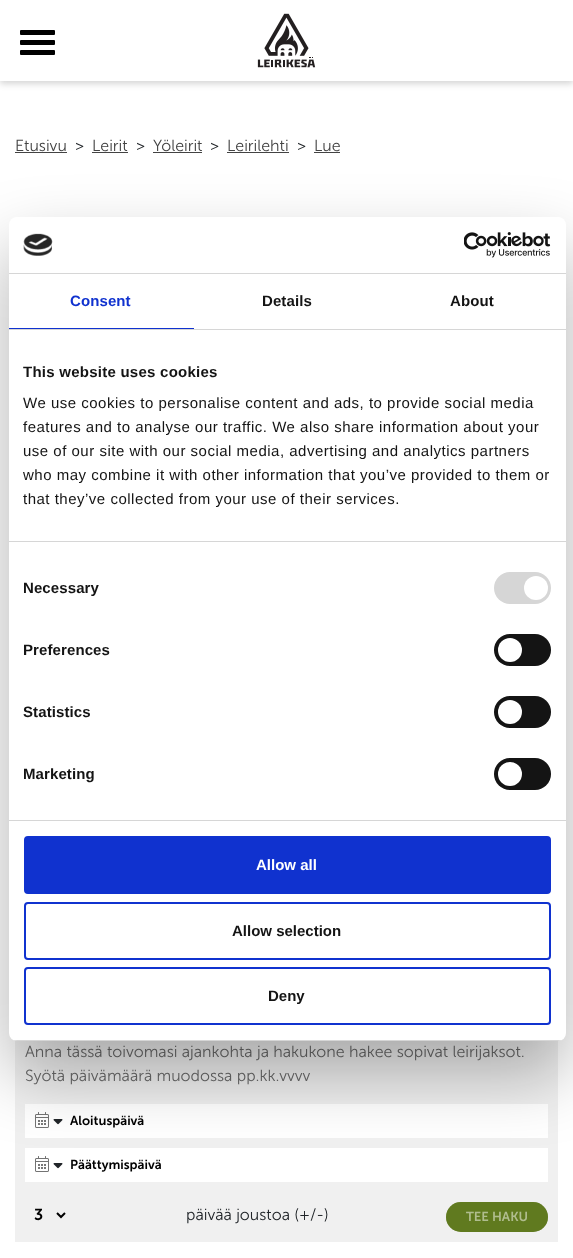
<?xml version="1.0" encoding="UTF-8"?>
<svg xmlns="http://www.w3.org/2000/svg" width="573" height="1258">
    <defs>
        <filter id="blur1" x="-50%" y="-200%" width="200%" height="500%"><feGaussianBlur stdDeviation="3"/></filter>
        <filter id="blur2" x="-50%" y="-200%" width="200%" height="500%"><feGaussianBlur stdDeviation="34"/></filter>
        <clipPath id="clip1"><rect x="9" y="217" width="557" height="824" rx="8"/></clipPath>
    </defs>
    <rect width="100%" height="100%" fill="#FFFFFF"/>
    <rect x="0" y="3" width="573" height="81" fill="#000000" fill-opacity="0.16" filter="url(#blur1)"/>
    <rect x="0" y="0" width="573" height="81" fill="#FFFFFF"/>
    <rect x="20" y="40" width="35" height="5" rx="1" fill="#000000"/>
    <rect x="20" y="30" width="35" height="5" rx="1" fill="#000000"/>
    <rect x="20" y="50" width="35" height="5" rx="1" fill="#000000"/>
    <image x="257" y="13" width="59" height="55" href="img_01.png"/>
    <text x="15" y="151" font-family="'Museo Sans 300'" font-size="16" font-weight="300" fill="#434343">Etusivu</text>
    <rect x="15" y="152" width="52" height="1" fill="#434343"/>
    <text x="75" y="151" font-family="'Museo Sans 300'" font-size="16" font-weight="300" fill="#212529">&gt;</text>
    <text x="92" y="151" font-family="'Museo Sans 300'" font-size="16" font-weight="300" fill="#434343">Leirit</text>
    <rect x="92" y="152" width="36" height="1" fill="#434343"/>
    <text x="136" y="151" font-family="'Museo Sans 300'" font-size="16" font-weight="300" fill="#212529">&gt;</text>
    <text x="153" y="151" font-family="'Museo Sans 300'" font-size="16" font-weight="300" fill="#434343">Yöleirit</text>
    <rect x="153" y="152" width="49" height="1" fill="#434343"/>
    <text x="210" y="151" font-family="'Museo Sans 300'" font-size="16" font-weight="300" fill="#212529">&gt;</text>
    <text x="227" y="151" font-family="'Museo Sans 300'" font-size="16" font-weight="300" fill="#434343">Leirilehti</text>
    <rect x="227" y="152" width="62" height="1" fill="#434343"/>
    <text x="297" y="151" font-family="'Museo Sans 300'" font-size="16" font-weight="300" fill="#212529">&gt;</text>
    <text x="314" y="151" font-family="'Museo Sans 300'" font-size="16" font-weight="300" fill="#434343">Lue</text>
    <rect x="314" y="152" width="26" height="1" fill="#434343"/>
    <rect x="15" y="1040" width="543" height="202" fill="#F0F0F0"/>
    <text font-family="'Museo Sans 300'" font-size="16" font-weight="300" fill="#696969">
        <tspan x="25" y="1057">Anna tässä toivomasi ajankohta ja hakukone hakee sopivat leirijaksot.</tspan>
        <tspan x="25" y="1081">Syötä päivämäärä muodossa pp.kk.vvvv</tspan>
    </text>
    <rect x="25" y="1104" width="523" height="34" fill="#FFFFFF"/>
    <image x="35" y="1112" width="14" height="16" href="img_02.png"/>
    <image x="53" y="1119" width="10" height="6" href="img_03.png"/>
    <text x="70" y="1125" font-family="'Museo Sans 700'" font-size="13" font-weight="600" fill="#000000">Aloituspäivä</text>
    <rect x="25" y="1148" width="523" height="34" fill="#FFFFFF"/>
    <image x="35" y="1156" width="14" height="16" href="img_02.png"/>
    <image x="53" y="1163" width="10" height="6" href="img_03.png"/>
    <text x="70" y="1169" font-family="'Museo Sans 700'" font-size="13" font-weight="600" fill="#000000">Päättymispäivä</text>
    <path d="M 57 1213 L 61 1217 L 65 1213" fill="none" stroke="#000000" stroke-width="2"/>
    <text x="34" y="1220" font-family="'Museo Sans 700'" font-size="16" font-weight="600" fill="#000000">3</text>
    <text x="186" y="1220" font-family="'Museo Sans 300'" font-size="16" font-weight="300" fill="#212529">päivää joustoa (+/-)</text>
    <rect x="446" y="1202" width="102" height="30" rx="15" fill="#607A1F"/>
    <rect x="446" y="1202" width="102" height="30" rx="15" fill="#607A1F" fill-opacity="0.5"/>
    <text x="466" y="1221" font-family="'Museo Sans 700'" font-size="13" font-weight="600" fill="#B0BD8F">TEE HAKU</text>
    <rect x="9" y="249" width="557" height="824" rx="8" fill="#000000" fill-opacity="0.3" filter="url(#blur2)"/>
    <rect x="9" y="217" width="557" height="824" rx="8" fill="#FFFFFF"/>
    <rect x="9" y="273" width="557" height="1" fill="#D6D6D6"/>
    <image x="23" y="233" width="30" height="23" href="img_04.png"/>
    <image x="464" y="232" width="87" height="26" href="img_05.png"/>
    <rect x="9" y="329" width="557" height="1" fill="#D6D6D6"/>
    <rect x="9" y="328" width="185" height="1" fill="#1032CF"/>
    <text x="70" y="306" font-family="Liberation Sans" font-size="15" font-weight="700" letter-spacing="0.1" fill="#1032CF">Consent</text>
    <text x="262" y="306" font-family="Liberation Sans" font-size="15" font-weight="700" letter-spacing="0.1" fill="#141414">Details</text>
    <text x="450" y="306" font-family="Liberation Sans" font-size="15" font-weight="700" letter-spacing="0.1" fill="#141414">About</text>
    <rect x="9" y="541" width="557" height="1" fill="#D6D6D6"/>
    <text x="23" y="377" font-family="Liberation Sans" font-size="15" font-weight="700" letter-spacing="0.25" fill="#141414">This website uses cookies</text>
    <text font-family="Liberation Sans" font-size="15" letter-spacing="0.5" fill="#141414">
        <tspan x="23" y="408">We use cookies to personalise content and ads, to provide social media</tspan>
        <tspan x="23" y="432">features and to analyse our traffic. We also share information about your</tspan>
        <tspan x="23" y="456">use of our site with our social media, advertising and analytics partners</tspan>
        <tspan x="23" y="480">who may combine it with other information that you’ve provided to them or</tspan>
        <tspan x="23" y="504">that they’ve collected from your use of their services.</tspan>
    </text>
    <rect x="9" y="820" width="557" height="1" fill="#D6D6D6"/>
    <text x="23" y="593" font-family="Liberation Sans" font-size="15" font-weight="700" letter-spacing="0.1" fill="#141414">Necessary</text>
    <rect x="494" y="572" width="57" height="32" rx="16" fill="#D6D6D6"/>
    <circle cx="536" cy="588" r="12" fill="#FFFFFF"/>
    <text x="23" y="655" font-family="Liberation Sans" font-size="15" font-weight="700" letter-spacing="0.1" fill="#141414">Preferences</text>
    <rect x="494" y="634" width="57" height="32" rx="16" fill="#141414"/>
    <circle cx="510" cy="650" r="12" fill="#FFFFFF"/>
    <text x="23" y="717" font-family="Liberation Sans" font-size="15" font-weight="700" letter-spacing="0.1" fill="#141414">Statistics</text>
    <rect x="494" y="696" width="57" height="32" rx="16" fill="#141414"/>
    <circle cx="510" cy="712" r="12" fill="#FFFFFF"/>
    <text x="23" y="779" font-family="Liberation Sans" font-size="15" font-weight="700" letter-spacing="0.1" fill="#141414">Marketing</text>
    <rect x="494" y="758" width="57" height="32" rx="16" fill="#141414"/>
    <circle cx="510" cy="774" r="12" fill="#FFFFFF"/>
    <g clip-path="url(#clip1)">
        <rect x="9" y="1040" width="557" height="1" fill="#D6D6D6"/>
    </g>
    <rect x="25" y="837" width="525" height="56" rx="3" fill="#1032CF" stroke="#1032CF" stroke-width="2"/>
    <text x="256" y="870" font-family="Liberation Sans" font-size="15" font-weight="700" fill="#FFFFFF">Allow all</text>
    <rect x="25" y="903" width="525" height="56" rx="3" fill="none" stroke="#1032CF" stroke-width="2"/>
    <text x="232" y="936" font-family="Liberation Sans" font-size="15" font-weight="700" fill="#141414">Allow selection</text>
    <rect x="25" y="968" width="525" height="56" rx="3" fill="none" stroke="#1032CF" stroke-width="2"/>
    <text x="268" y="1001" font-family="Liberation Sans" font-size="15" font-weight="700" fill="#141414">Deny</text>
</svg>
